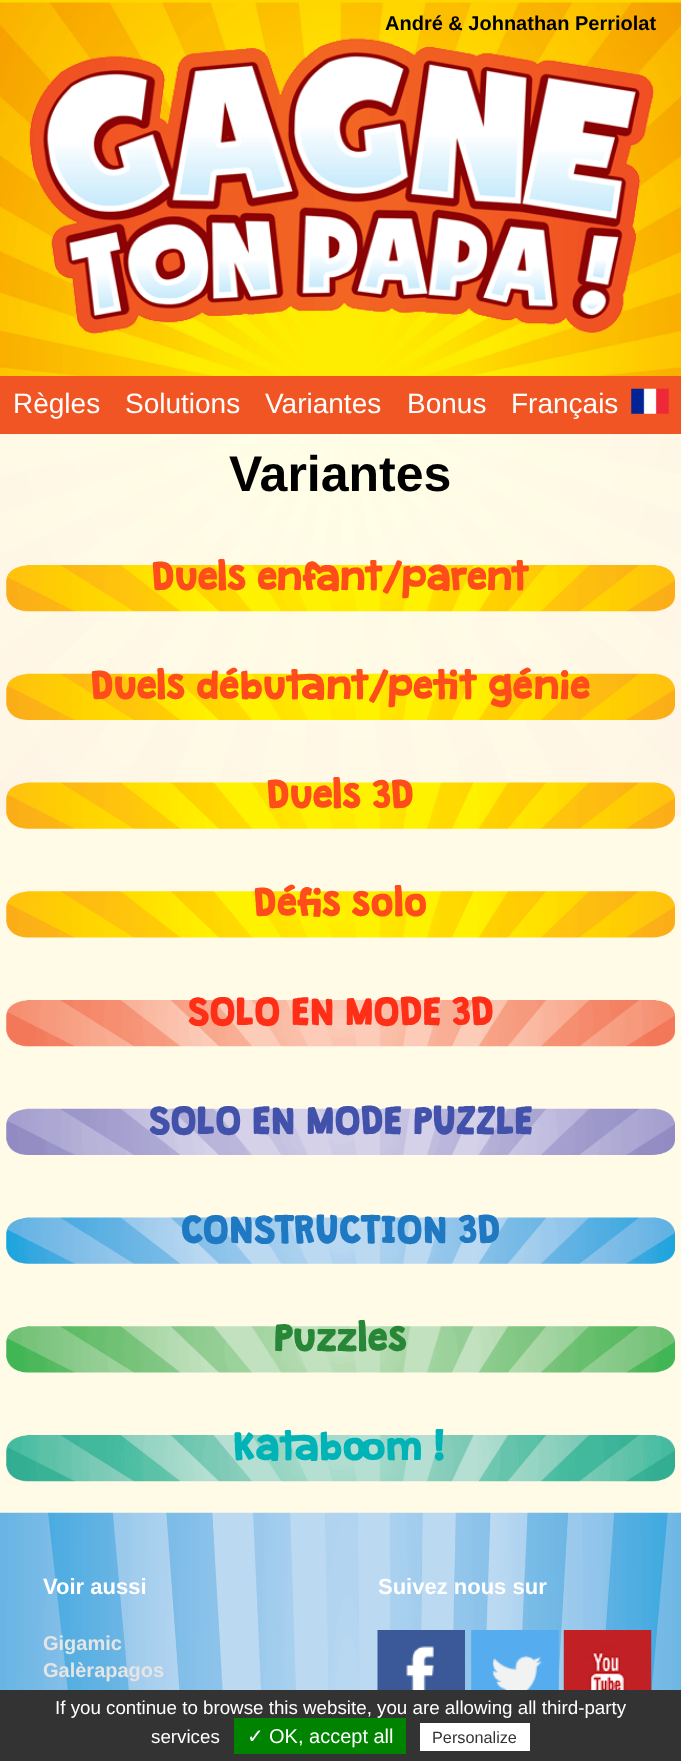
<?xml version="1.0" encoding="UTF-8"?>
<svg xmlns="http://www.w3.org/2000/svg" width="681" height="1761">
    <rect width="100%" height="100%" fill="#FED700"/>
    <image x="0" y="2" width="681" height="815" href="img_01.png"/>
    <text x="385" y="30" font-family="Liberation Sans" font-size="20" font-weight="700" fill="#000000">André &amp; Johnathan Perriolat</text>
    <image x="29" y="38" width="625" height="296" href="img_02.png"/>
    <rect x="0" y="376" width="681" height="58" fill="#F15523"/>
    <text x="13" y="413" font-family="Liberation Sans" font-size="28" fill="#FFFFFF">Règles</text>
    <text x="125" y="413" font-family="Liberation Sans" font-size="28" fill="#FFFFFF">Solutions</text>
    <text x="265" y="413" font-family="Liberation Sans" font-size="28" fill="#FFFFFF">Variantes</text>
    <text x="407" y="413" font-family="Liberation Sans" font-size="28" fill="#FFFFFF">Bonus</text>
    <text x="511" y="413" font-family="Liberation Sans" font-size="28" fill="#FFFFFF">Français</text>
    <image x="631" y="388" width="38" height="26" href="img_03.png"/>
    <rect x="0" y="434" width="681" height="1079" fill="#FFFFFF" fill-opacity="0.9"/>
    <text x="229" y="491" font-family="Liberation Sans" font-size="50" font-weight="700" fill="#000000">Variantes</text>
    <image x="6" y="565" width="669" height="47" href="img_04.png"/>
    <text x="152" y="590" font-family="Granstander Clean" font-size="34" font-weight="700" fill="#FF4C1B">Duels enfant/parent</text>
    <image x="6" y="673" width="669" height="47" href="img_05.png"/>
    <text x="91" y="699" font-family="Granstander Clean" font-size="34" font-weight="700" fill="#FF4C1B">Duels débutant/petit génie</text>
    <image x="6" y="782" width="669" height="47" href="img_06.png"/>
    <text x="267" y="808" font-family="Granstander Clean" font-size="34" font-weight="700" fill="#FF4C1B">Duels 3D</text>
    <image x="6" y="891" width="669" height="47" href="img_07.png"/>
    <text x="254" y="916" font-family="Granstander Clean" font-size="34" font-weight="700" fill="#FF4C1B">Défis solo</text>
    <image x="6" y="1000" width="669" height="47" href="img_08.png"/>
    <text x="188" y="1025" font-family="Granstander Clean" font-size="34" font-weight="700" fill="#FF2E17">SOLO EN MODE 3D</text>
    <image x="6" y="1108" width="669" height="47" href="img_09.png"/>
    <text x="149" y="1134" font-family="Granstander Clean" font-size="34" font-weight="700" fill="#4252AB">SOLO EN MODE PUZZLE</text>
    <image x="6" y="1217" width="669" height="47" href="img_10.png"/>
    <text x="181" y="1243" font-family="Granstander Clean" font-size="34" font-weight="700" fill="#1E78C2">CONSTRUCTION 3D</text>
    <image x="6" y="1326" width="669" height="47" href="img_11.png"/>
    <text x="274" y="1351" font-family="Granstander Clean" font-size="34" font-weight="700" fill="#288736">Puzzles</text>
    <image x="6" y="1435" width="669" height="47" href="img_12.png"/>
    <text x="234" y="1460" font-family="Granstander Clean" font-size="34" font-weight="700" fill="#00B3B7">Kataboom !</text>
    <image x="0" y="1512" width="681" height="178" href="img_13.png"/>
    <text x="43" y="1594" font-family="Liberation Sans" font-size="22" font-weight="700" fill="#FFFFFF">Voir aussi</text>
    <text font-family="Liberation Sans" font-size="20" font-weight="700" fill="#E5E5E5">
        <tspan x="43" y="1650">Gigamic</tspan>
        <tspan x="43" y="1677">Galèrapagos</tspan>
    </text>
    <text x="378" y="1594" font-family="Liberation Sans" font-size="22" font-weight="700" fill="#FFFFFF">Suivez nous sur</text>
    <image x="377" y="1630" width="88" height="60" href="img_14.png"/>
    <image x="471" y="1630" width="88" height="60" href="img_15.png"/>
    <image x="563" y="1630" width="89" height="60" href="img_16.png"/>
    <rect x="0" y="1690" width="681" height="71" fill="#333333"/>
    <text x="55" y="1714" font-family="Liberation Sans" font-size="18.75" fill="#FFFFFF">If you continue to browse this website, you are allowing all third-party</text>
    <text x="151" y="1743" font-family="Liberation Sans" font-size="18.75" fill="#FFFFFF">services</text>
    <rect x="234" y="1718" width="172" height="36" fill="#008300"/>
    <text x="247" y="1743" font-family="DejaVu Sans" font-size="20" fill="#FFFFFF">✓</text>
    <text x="269" y="1743" font-family="Liberation Sans" font-size="20" fill="#FFFFFF">OK, accept all</text>
    <rect x="420" y="1723" width="110" height="28" fill="#FFFFFF"/>
    <text x="432" y="1743" font-family="Liberation Sans" font-size="16.25" fill="#333333">Personalize</text>
</svg>
